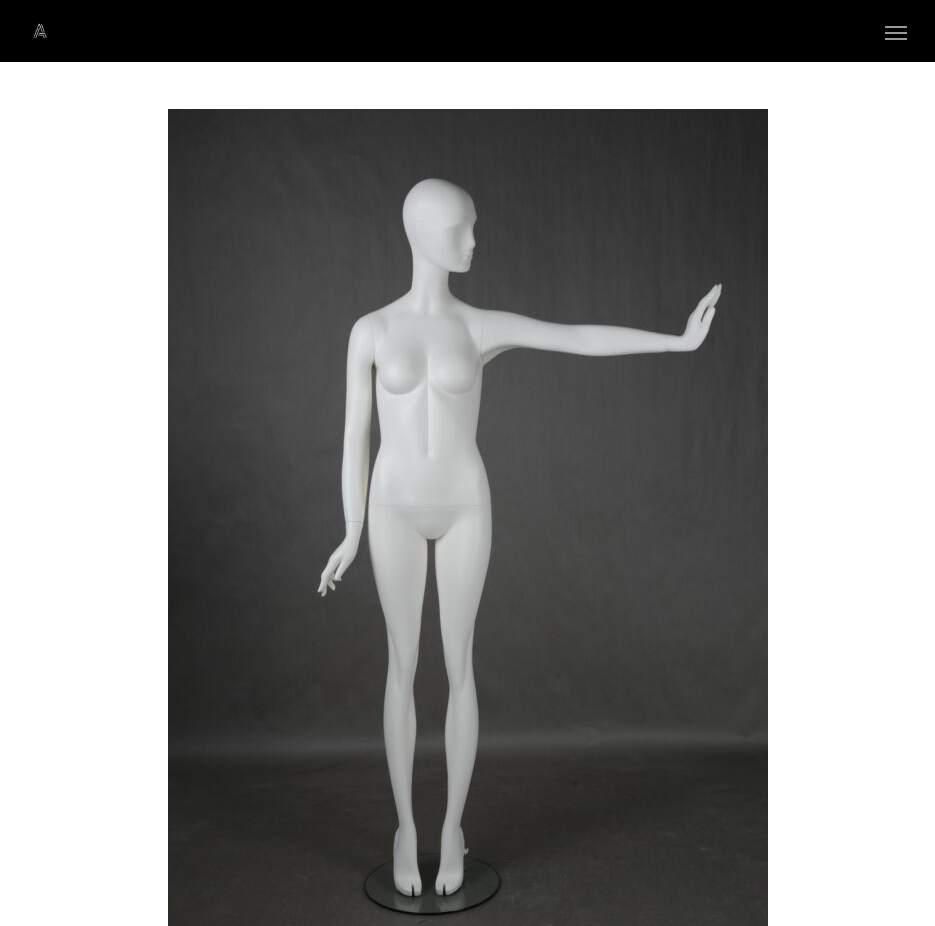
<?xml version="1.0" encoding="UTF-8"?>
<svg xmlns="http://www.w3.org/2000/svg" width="935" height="926">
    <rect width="100%" height="100%" fill="#FFFFFF"/>
    <rect x="0" y="0" width="935" height="62" fill="#000000"/>
    <image x="33" y="23" width="14" height="16" href="img_01.png"/>
    <rect x="885" y="26" width="22" height="2" fill="#999999"/>
    <rect x="885" y="38" width="22" height="2" fill="#999999"/>
    <rect x="885" y="32" width="22" height="2" fill="#999999"/>
    <image x="168" y="109" width="600" height="817" href="img_02.png"/>
</svg>
